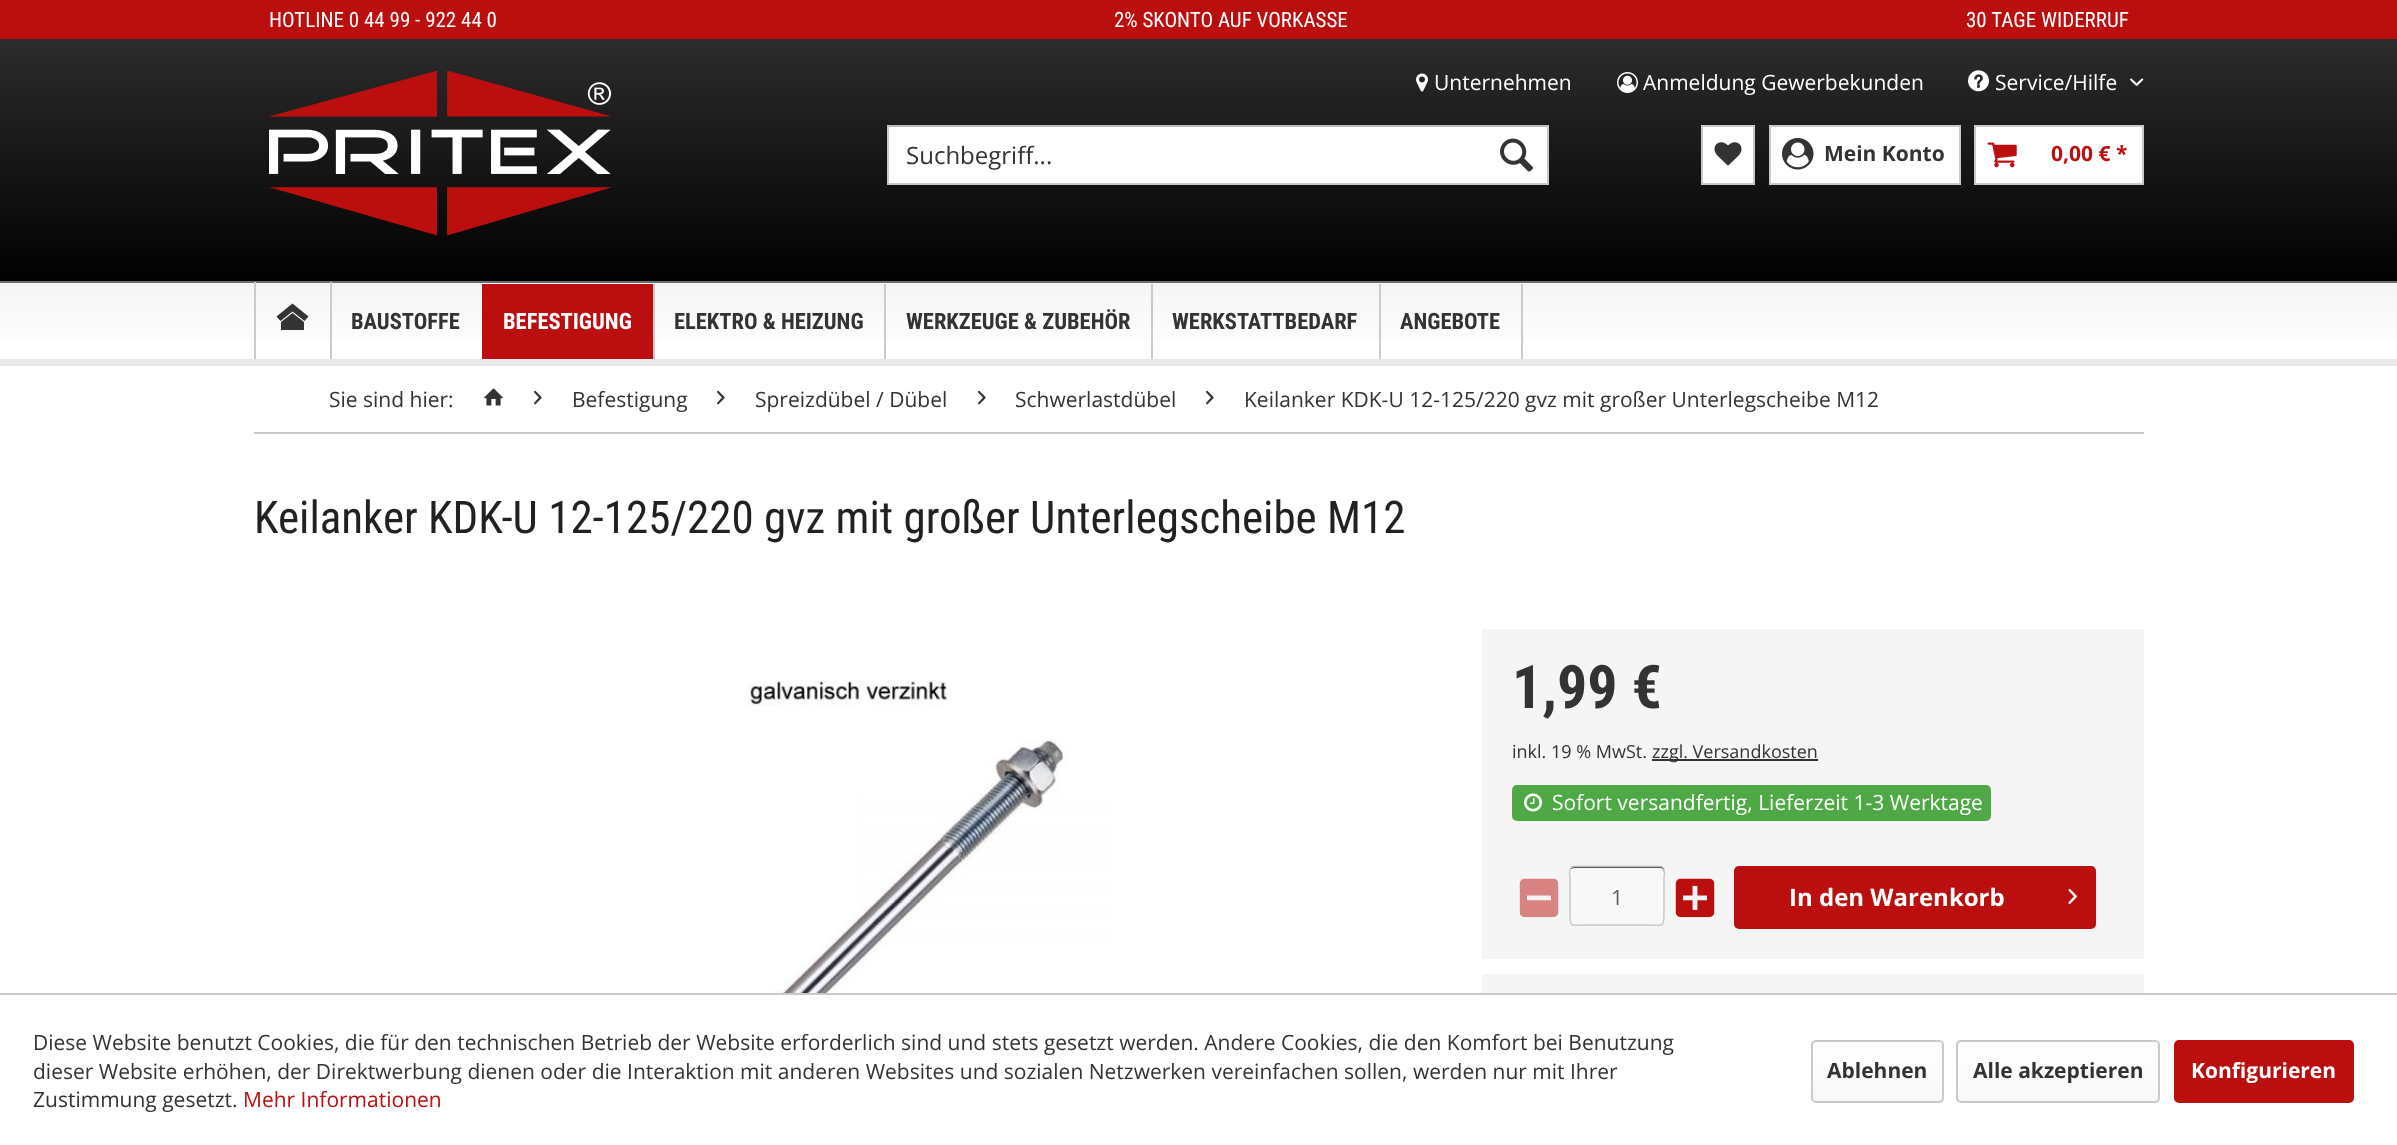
<?xml version="1.0" encoding="UTF-8"?>
<svg xmlns="http://www.w3.org/2000/svg" width="2397" height="1145">
    <defs>
        <linearGradient id="g1" gradientUnits="userSpaceOnUse" x1="1199" y1="39" x2="1199" y2="281"><stop offset="0" stop-color="#2D2C2C"/><stop offset="1" stop-color="#010101"/></linearGradient>
        <linearGradient id="g2" gradientUnits="userSpaceOnUse" x1="1199" y1="282" x2="1199" y2="359"><stop offset="0" stop-color="#F5F5F5"/><stop offset="1" stop-color="#FFFFFF"/></linearGradient>
        <linearGradient id="g3" gradientUnits="userSpaceOnUse" x1="1877" y1="1041" x2="1877" y2="1101"><stop offset="0" stop-color="#FFFFFF"/><stop offset="1" stop-color="#F8F8F8"/></linearGradient>
        <linearGradient id="g4" gradientUnits="userSpaceOnUse" x1="2058" y1="1041" x2="2058" y2="1101"><stop offset="0" stop-color="#FFFFFF"/><stop offset="1" stop-color="#F8F8F8"/></linearGradient>
    </defs>
    <rect width="100%" height="100%" fill="#FFFFFF"/>
    <rect x="0" y="0" width="2397" height="39" fill="#BB0F0F"/>
    <text x="269" y="27" font-family="Roboto Condensed" font-size="21" fill="#FFFFFF">HOTLINE 0 44 99 - 922 44 0</text>
    <text x="1114" y="27" font-family="Roboto Condensed" font-size="21" fill="#FFFFFF">2% SKONTO AUF VORKASSE</text>
    <text x="1966" y="27" font-family="Roboto Condensed" font-size="21" fill="#FFFFFF">30 TAGE WIDERRUF</text>
    <rect x="0" y="39" width="2397" height="242" fill="url(#g1)"/>
    <image x="1416" y="73" width="12" height="19" href="img_01.png"/>
    <text x="1434" y="90" font-family="Open Sans" font-size="21" fill="#FFFFFF">Unternehmen</text>
    <image x="1617" y="72" width="21" height="21" href="img_02.png"/>
    <text x="1643" y="90" font-family="Open Sans" font-size="21" fill="#FFFFFF">Anmeldung Gewerbekunden</text>
    <image x="1968" y="70" width="21" height="22" href="img_03.png"/>
    <text x="1995" y="90" font-family="Open Sans" font-size="21" fill="#FFFFFF">Service/Hilfe</text>
    <image x="2130" y="78" width="14" height="8" href="img_04.png"/>
    <image x="269" y="71" width="343" height="165" href="img_05.png"/>
    <rect x="889" y="127" width="658" height="56" fill="#FFFFFF"/>
    <rect x="887" y="125" width="661" height="2" fill="#BCBCBC"/>
    <rect x="1547" y="125" width="2" height="60" fill="#C9C9C9"/>
    <rect x="887" y="183" width="661" height="2" fill="#C9C9C9"/>
    <rect x="887" y="125" width="2" height="60" fill="#C9C9C9"/>
    <text x="906" y="164" font-family="Open Sans" font-size="24" fill="#333333">Suchbegriff...</text>
    <image x="1500" y="138" width="33" height="34" href="img_06.png"/>
    <rect x="1702" y="126" width="52" height="58" fill="#FFFFFF" stroke="#C9C9C9" stroke-width="2"/>
    <image x="1714" y="142" width="28" height="24" href="img_07.png"/>
    <rect x="1770" y="126" width="190" height="58" fill="#FFFFFF" stroke="#C9C9C9" stroke-width="2"/>
    <image x="1782" y="138" width="32" height="32" href="img_08.png"/>
    <text x="1824" y="161" font-family="Open Sans" font-size="21" font-weight="700" fill="#333333">Mein Konto</text>
    <rect x="1975" y="126" width="168" height="58" fill="#FFFFFF" stroke="#C9C9C9" stroke-width="2"/>
    <image x="1987" y="142" width="30" height="26" href="img_09.png"/>
    <text x="2051" y="161" font-family="Open Sans" font-size="21" font-weight="700" fill="#BB0F0F">0,00 € *</text>
    <rect x="0" y="283" width="2397" height="57" fill="url(#g2)"/>
    <rect x="0" y="281" width="2397" height="2" fill="#6D6D6D"/>
    <rect x="0" y="359" width="2397" height="7" fill="#E9E9E9"/>
    <rect x="330" y="282" width="2" height="77" fill="#CBCBCB"/>
    <rect x="254" y="282" width="2" height="77" fill="#CBCBCB"/>
    <path d="M 281 322 V 330 H 304 V 322 L 292.5 313 Z M 292.5 303.5 L 276.5 316.5 L 280.5 321 L 292.5 311.5 L 304.5 321 L 308.5 316.5 Z" fill="#333333"/>
    <text x="351" y="329" font-family="Roboto Condensed" font-size="22.5" font-weight="700" fill="#333333">BAUSTOFFE</text>
    <rect x="482" y="284" width="171" height="75" fill="#BB0F0F"/>
    <rect x="653" y="284" width="2" height="75" fill="#CBCBCB"/>
    <text x="503" y="329" font-family="Roboto Condensed" font-size="22.5" font-weight="700" fill="#FFFFFF">BEFESTIGUNG</text>
    <rect x="884" y="284" width="2" height="75" fill="#CBCBCB"/>
    <text x="674" y="329" font-family="Roboto Condensed" font-size="22.5" font-weight="700" fill="#333333">ELEKTRO &amp; HEIZUNG</text>
    <rect x="1151" y="284" width="2" height="75" fill="#CBCBCB"/>
    <text x="906" y="329" font-family="Roboto Condensed" font-size="22.5" font-weight="700" fill="#333333">WERKZEUGE &amp; ZUBEHÖR</text>
    <rect x="1379" y="284" width="2" height="75" fill="#CBCBCB"/>
    <text x="1172" y="329" font-family="Roboto Condensed" font-size="22.5" font-weight="700" fill="#333333">WERKSTATTBEDARF</text>
    <rect x="1521" y="284" width="2" height="75" fill="#CBCBCB"/>
    <text x="1400" y="329" font-family="Roboto Condensed" font-size="22.5" font-weight="700" fill="#333333">ANGEBOTE</text>
    <rect x="254" y="432" width="1890" height="2" fill="#C9C9C9"/>
    <text x="329" y="407" font-family="Open Sans" font-size="21" fill="#333333">Sie sind hier:</text>
    <image x="484" y="388" width="19" height="18" href="img_10.png"/>
    <image x="534" y="390" width="8" height="15" href="img_11.png"/>
    <text x="572" y="407" font-family="Open Sans" font-size="21" fill="#333333">Befestigung</text>
    <image x="717" y="390" width="8" height="15" href="img_11.png"/>
    <text x="755" y="407" font-family="Open Sans" font-size="21" fill="#333333">Spreizdübel / Dübel</text>
    <image x="978" y="390" width="8" height="15" href="img_11.png"/>
    <text x="1015" y="407" font-family="Open Sans" font-size="21" fill="#333333">Schwerlastdübel</text>
    <image x="1206" y="390" width="8" height="15" href="img_11.png"/>
    <text x="1244" y="407" font-family="Open Sans" font-size="21" fill="#333333">Keilanker KDK-U 12-125/220 gvz mit großer Unterlegscheibe M12</text>
    <text x="254" y="533" font-family="Roboto Condensed" font-size="45" fill="#212121">Keilanker KDK-U 12-125/220 gvz mit großer Unterlegscheibe M12</text>
    <image x="621" y="680" width="491" height="313" href="img_12.png"/>
    <rect x="1482" y="629" width="662" height="330" fill="#F5F5F5"/>
    <text x="1512" y="708" font-family="Roboto Condensed" font-size="60" font-weight="700" fill="#333333">1,99 €</text>
    <text x="1512" y="758" font-family="Open Sans" font-size="18" fill="#333333">inkl. 19 % MwSt.</text>
    <rect x="1652" y="759" width="166" height="2" fill="#333333"/>
    <text x="1652" y="758" font-family="Open Sans" font-size="18" fill="#333333">zzgl. Versandkosten</text>
    <rect x="1512" y="785" width="479" height="36" rx="5" fill="#4FA846"/>
    <image x="1524" y="793" width="18" height="19" href="img_13.png"/>
    <text x="1552" y="810" font-family="Open Sans" font-size="21" fill="#FFFFFF">Sofort versandfertig, Lieferzeit 1-3 Werktage</text>
    <image x="1519" y="878" width="40" height="40" href="img_14.png"/>
    <rect x="1569" y="866" width="96" height="60" rx="5" fill="#F8F8F8"/>
    <path d="M 1574 868 H 1660 C 1662 868 1664 870 1664 872 V 870 C 1664 868 1663 867 1661 867 H 1574 C 1573 867 1571 868 1571 869 Z" fill="#3A3A3A"/>
    <path d="M 1571 867.5 L 1573 866.5 H 1661 L 1663 867.5" fill="none" stroke="#BCBCBC" stroke-width="1.5"/>
    <path d="M 1663 867.5 C 1665.5 870 1664 877.5 1664 878.5 V 912.5 C 1664 928.5 1664 925 1646 925 H 1588 C 1570 925 1570 928.5 1570 912.5 V 878.5 C 1570 877.5 1568.5 870 1571 867.5" fill="none" stroke="#C9C9C9" stroke-width="1.5"/>
    <text x="1611" y="905" font-family="Open Sans" font-size="21" fill="#595959">1</text>
    <image x="1675" y="878" width="40" height="40" href="img_15.png"/>
    <rect x="1734" y="866" width="362" height="63" rx="5" fill="#BB0F0F"/>
    <text x="1789" y="906" font-family="Open Sans" font-size="24" font-weight="700" fill="#FFFFFF">In den Warenkorb</text>
    <image x="2068" y="889" width="9" height="15" href="img_16.png"/>
    <rect x="1482" y="974" width="662" height="19" fill="#F5F5F5"/>
    <rect x="0" y="993" width="2397" height="2" fill="#C9C9C9"/>
    <text font-family="Open Sans" font-size="21" fill="#333333">
        <tspan x="33" y="1050">Diese Website benutzt Cookies, die für den technischen Betrieb der Website erforderlich sind und stets gesetzt werden. Andere Cookies, die den Komfort bei Benutzung</tspan>
        <tspan x="33" y="1079">dieser Website erhöhen, der Direktwerbung dienen oder die Interaktion mit anderen Websites und sozialen Netzwerken vereinfachen sollen, werden nur mit Ihrer</tspan>
        <tspan x="33" y="1107">Zustimmung gesetzt.</tspan>
    </text>
    <text x="243" y="1107" font-family="Open Sans" font-size="21" fill="#BB0F0F">Mehr Informationen</text>
    <rect x="1812" y="1041" width="131" height="60" rx="3" fill="url(#g3)"/>
    <rect x="1812" y="1041" width="131" height="61" rx="4" fill="none" stroke="#C9C9C9" stroke-width="2"/>
    <text x="1827" y="1078" font-family="Open Sans" font-size="21" font-weight="700" fill="#333333">Ablehnen</text>
    <rect x="1958" y="1041" width="201" height="60" rx="3" fill="url(#g4)"/>
    <rect x="1957" y="1041" width="202" height="61" rx="4" fill="none" stroke="#C9C9C9" stroke-width="2"/>
    <text x="1973" y="1078" font-family="Open Sans" font-size="21" font-weight="700" fill="#333333">Alle akzeptieren</text>
    <rect x="2174" y="1040" width="180" height="63" rx="5" fill="#BB0F0F"/>
    <text x="2191" y="1078" font-family="Open Sans" font-size="21" font-weight="700" fill="#FFFFFF">Konfigurieren</text>
</svg>
